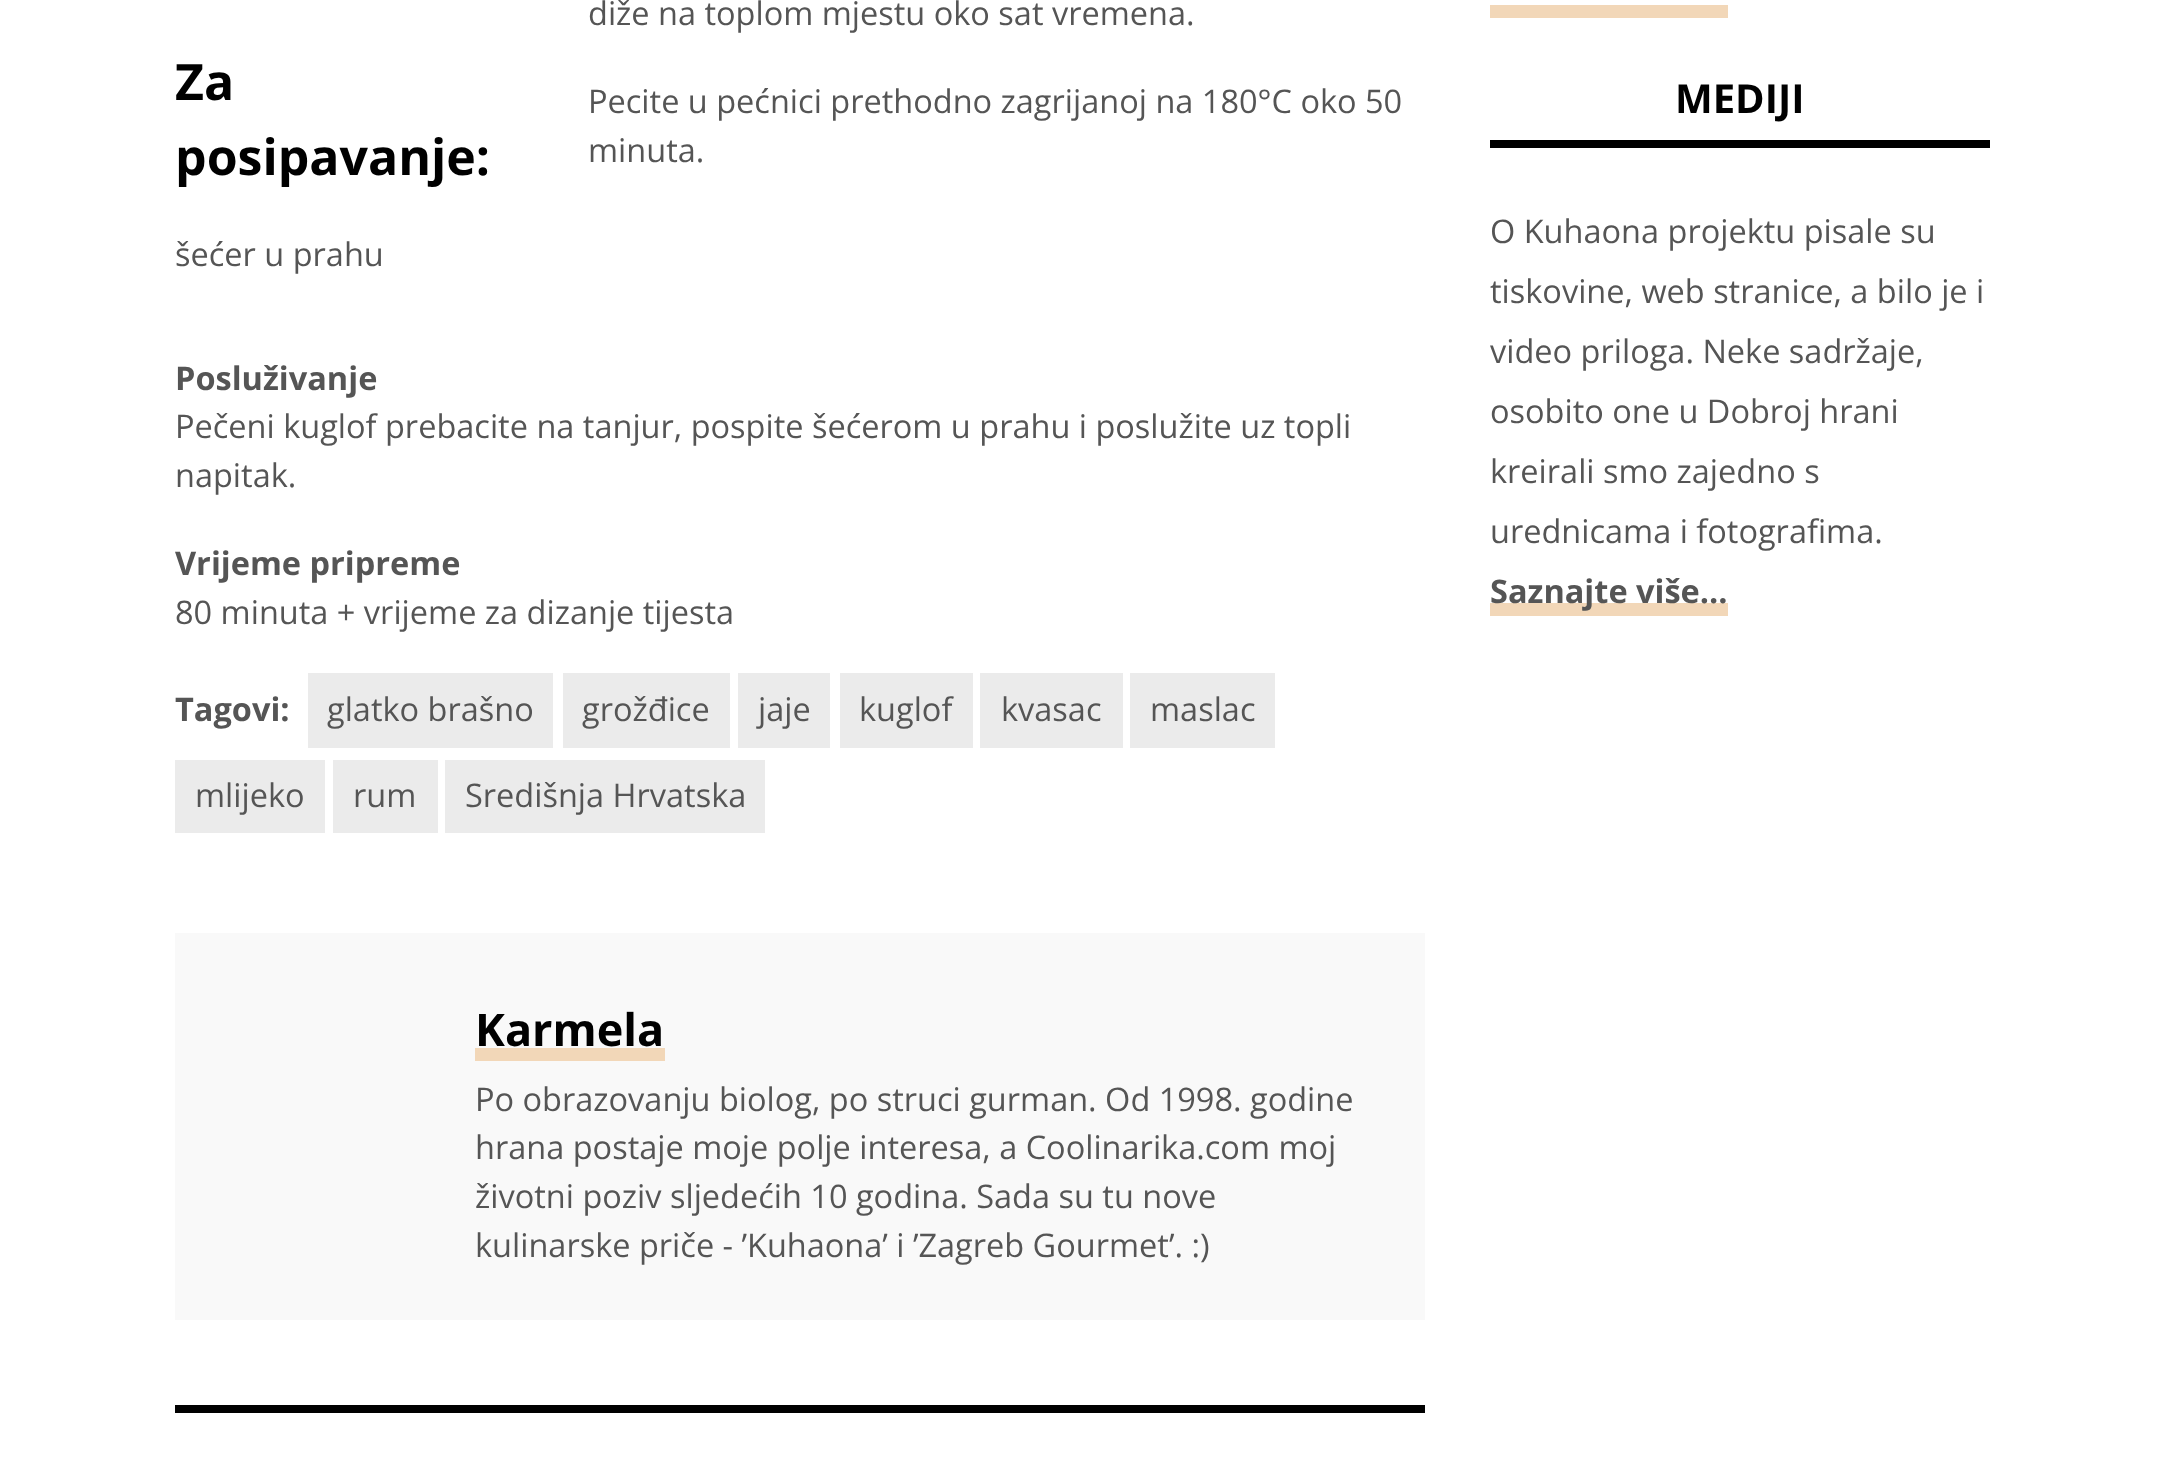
<?xml version="1.0" encoding="UTF-8"?>
<svg xmlns="http://www.w3.org/2000/svg" width="2164" height="1482">
    <rect width="100%" height="100%" fill="#FFFFFF"/>
    <text font-family="Open Sans" font-size="50" font-weight="700" fill="#000000">
        <tspan x="175" y="100">Za</tspan>
        <tspan x="175" y="175">posipavanje:</tspan>
    </text>
    <text x="175" y="266" font-family="Open Sans" font-size="32.5" fill="#555555">šećer u prahu</text>
    <text x="588" y="25" font-family="Open Sans" font-size="32.5" fill="#555555">diže na toplom mjestu oko sat vremena.</text>
    <text font-family="Open Sans" font-size="32.5" fill="#555555">
        <tspan x="588" y="113">Pecite u pećnici prethodno zagrijanoj na 180°C oko 50</tspan>
        <tspan x="588" y="162">minuta.</tspan>
    </text>
    <text x="175" y="390" font-family="Open Sans" font-size="32.5" font-weight="700" fill="#555555">Posluživanje</text>
    <text font-family="Open Sans" font-size="32.5" fill="#555555">
        <tspan x="175" y="438">Pečeni kuglof prebacite na tanjur, pospite šećerom u prahu i poslužite uz topli</tspan>
        <tspan x="175" y="487">napitak.</tspan>
    </text>
    <text x="175" y="575" font-family="Open Sans" font-size="32.5" font-weight="700" fill="#555555">Vrijeme pripreme</text>
    <text x="175" y="624" font-family="Open Sans" font-size="32.5" fill="#555555">80 minuta + vrijeme za dizanje tijesta</text>
    <text x="175" y="721" font-family="Open Sans" font-size="32.5" font-weight="700" fill="#555555">Tagovi:</text>
    <rect x="308" y="673" width="245" height="75" fill="#EBEBEB"/>
    <text x="327" y="721" font-family="Open Sans" font-size="32.5" fill="#555555">glatko brašno</text>
    <rect x="563" y="673" width="167" height="75" fill="#EBEBEB"/>
    <text x="582" y="721" font-family="Open Sans" font-size="32.5" fill="#555555">grožđice</text>
    <rect x="738" y="673" width="92" height="75" fill="#EBEBEB"/>
    <text x="758" y="721" font-family="Open Sans" font-size="32.5" fill="#555555">jaje</text>
    <rect x="840" y="673" width="133" height="75" fill="#EBEBEB"/>
    <text x="859" y="721" font-family="Open Sans" font-size="32.5" fill="#555555">kuglof</text>
    <rect x="980" y="673" width="143" height="75" fill="#EBEBEB"/>
    <text x="1001" y="721" font-family="Open Sans" font-size="32.5" fill="#555555">kvasac</text>
    <rect x="1130" y="673" width="145" height="75" fill="#EBEBEB"/>
    <text x="1150" y="721" font-family="Open Sans" font-size="32.5" fill="#555555">maslac</text>
    <rect x="175" y="760" width="150" height="73" fill="#EBEBEB"/>
    <text x="195" y="807" font-family="Open Sans" font-size="32.5" fill="#555555">mlijeko</text>
    <rect x="333" y="760" width="105" height="73" fill="#EBEBEB"/>
    <text x="353" y="807" font-family="Open Sans" font-size="32.5" fill="#555555">rum</text>
    <rect x="445" y="760" width="320" height="73" fill="#EBEBEB"/>
    <text x="465" y="807" font-family="Open Sans" font-size="32.5" fill="#555555">Središnja Hrvatska</text>
    <rect x="175" y="933" width="1250" height="387" fill="#F9F9F9"/>
    <text x="475" y="1046" font-family="Open Sans" font-size="45" font-weight="700" fill="#000000">Karmela</text>
    <rect x="475" y="1048" width="190" height="13" fill="#F2D7B8"/>
    <text font-family="Open Sans" font-size="32.5" fill="#555555">
        <tspan x="475" y="1111">Po obrazovanju biolog, po struci gurman. Od 1998. godine</tspan>
        <tspan x="475" y="1159">hrana postaje moje polje interesa, a Coolinarika.com moj</tspan>
        <tspan x="475" y="1208">životni poziv sljedećih 10 godina. Sada su tu nove</tspan>
        <tspan x="475" y="1257">kulinarske priče - ’Kuhaona’ i ’Zagreb Gourmet’. :)</tspan>
    </text>
    <rect x="175" y="1405" width="1250" height="8" fill="#000000"/>
    <rect x="1490" y="5" width="238" height="13" fill="#F2D7B8"/>
    <rect x="1490" y="140" width="500" height="8" fill="#000000"/>
    <text x="1675" y="113" font-family="Open Sans" font-size="40" font-weight="700" fill="#000000">MEDIJI</text>
    <text font-family="Open Sans" font-size="32.5" fill="#555555">
        <tspan x="1490" y="243">O Kuhaona projektu pisale su</tspan>
        <tspan x="1490" y="303">tiskovine, web stranice, a bilo je i</tspan>
        <tspan x="1490" y="363">video priloga. Neke sadržaje,</tspan>
        <tspan x="1490" y="423">osobito one u Dobroj hrani</tspan>
        <tspan x="1490" y="483">kreirali smo zajedno s</tspan>
        <tspan x="1490" y="543">urednicama i fotografima.</tspan>
    </text>
    <rect x="1490" y="603" width="238" height="13" fill="#F2D7B8"/>
    <text x="1490" y="603" font-family="Open Sans" font-size="32.5" font-weight="700" fill="#555555">Saznajte više...</text>
</svg>
